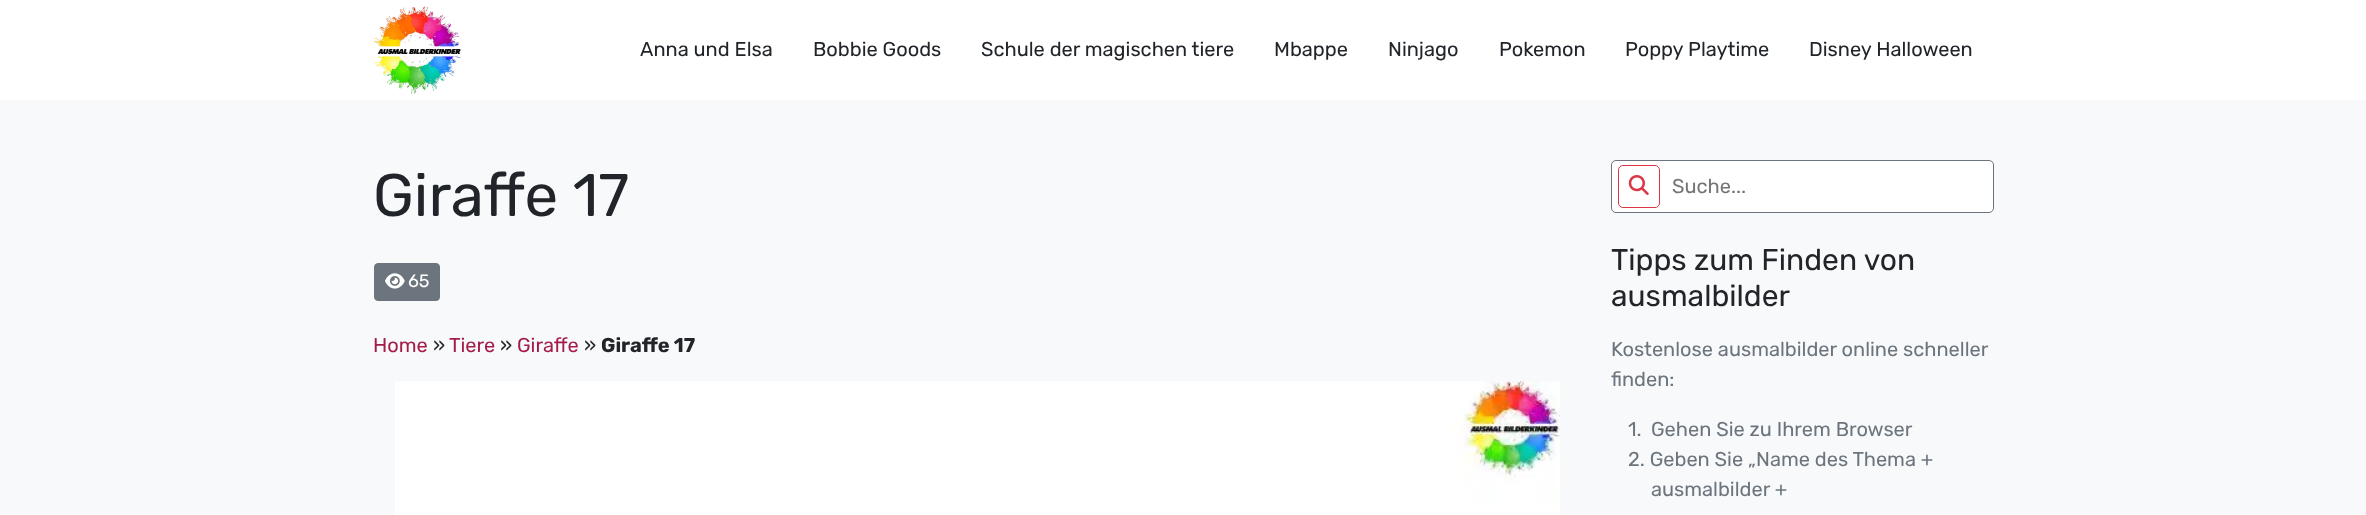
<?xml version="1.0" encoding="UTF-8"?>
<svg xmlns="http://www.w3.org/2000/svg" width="2366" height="515">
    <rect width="100%" height="100%" fill="#F8F9FA"/>
    <rect x="0" y="0" width="2366" height="100" fill="#FFFFFF"/>
    <image x="373" y="6" width="88" height="88" href="img_01.png"/>
    <text x="640" y="56" font-family="Rubik" font-size="20" fill="#212529">Anna und Elsa</text>
    <text x="813" y="56" font-family="Rubik" font-size="20" fill="#212529">Bobbie Goods</text>
    <text x="981" y="56" font-family="Rubik" font-size="20" fill="#212529">Schule der magischen tiere</text>
    <text x="1274" y="56" font-family="Rubik" font-size="20" fill="#212529">Mbappe</text>
    <text x="1388" y="56" font-family="Rubik" font-size="20" fill="#212529">Ninjago</text>
    <text x="1499" y="56" font-family="Rubik" font-size="20" fill="#212529">Pokemon</text>
    <text x="1625" y="56" font-family="Rubik" font-size="20" fill="#212529">Poppy Playtime</text>
    <text x="1809" y="56" font-family="Rubik" font-size="20" fill="#212529">Disney Halloween</text>
    <text x="373" y="216" font-family="Rubik" font-size="60" fill="#212529">Giraffe 17</text>
    <rect x="374.5" y="263.5" width="65" height="37" rx="3.5" fill="#6C757D" stroke="#6C757D"/>
    <image x="385" y="273" width="20" height="16" href="img_02.png"/>
    <text x="408" y="287" font-family="Rubik" font-size="18" fill="#FFFFFF">65</text>
    <text x="373" y="352" font-family="Rubik" font-size="20" fill="#A41D4A">Home</text>
    <text x="433" y="352" font-family="Rubik" font-size="20" fill="#212529">»</text>
    <text x="449" y="352" font-family="Rubik" font-size="20" fill="#A41D4A">Tiere</text>
    <text x="500" y="352" font-family="Rubik" font-size="20" fill="#212529">»</text>
    <text x="517" y="352" font-family="Rubik" font-size="20" fill="#A41D4A">Giraffe</text>
    <text x="584" y="352" font-family="Rubik" font-size="20" fill="#212529">»</text>
    <text x="601" y="352" font-family="Rubik" font-size="20" font-weight="700" fill="#212529">Giraffe 17</text>
    <image x="395" y="381" width="1165" height="134" href="img_03.png"/>
    <rect x="1611.5" y="160.5" width="382" height="52" rx="4.5" fill="#FFFFFF" stroke="#6C757D"/>
    <rect x="1618.5" y="165.5" width="41" height="42" rx="4.5" fill="none" stroke="#DC3545"/>
    <image x="1628" y="175" width="21" height="20" href="img_04.png"/>
    <text x="1672" y="193" font-family="Rubik" font-size="20" fill="#757575">Suche...</text>
    <text font-family="Rubik" font-size="30" fill="#212529">
        <tspan x="1611" y="270">Tipps zum Finden von</tspan>
        <tspan x="1611" y="306">ausmalbilder</tspan>
    </text>
    <text font-family="Rubik" font-size="20" fill="#6C757D">
        <tspan x="1611" y="356">Kostenlose ausmalbilder online schneller</tspan>
        <tspan x="1611" y="386">finden:</tspan>
    </text>
    <text x="1628" y="436" font-family="Rubik" font-size="20" fill="#6C757D">1.</text>
    <text x="1651" y="436" font-family="Rubik" font-size="20" fill="#6C757D">Gehen Sie zu Ihrem Browser</text>
    <text x="1628" y="466" font-family="Rubik" font-size="20" fill="#6C757D">2. Geben Sie „Name des Thema +</text>
    <text x="1651" y="496" font-family="Rubik" font-size="20" fill="#6C757D">ausmalbilder +</text>
</svg>
